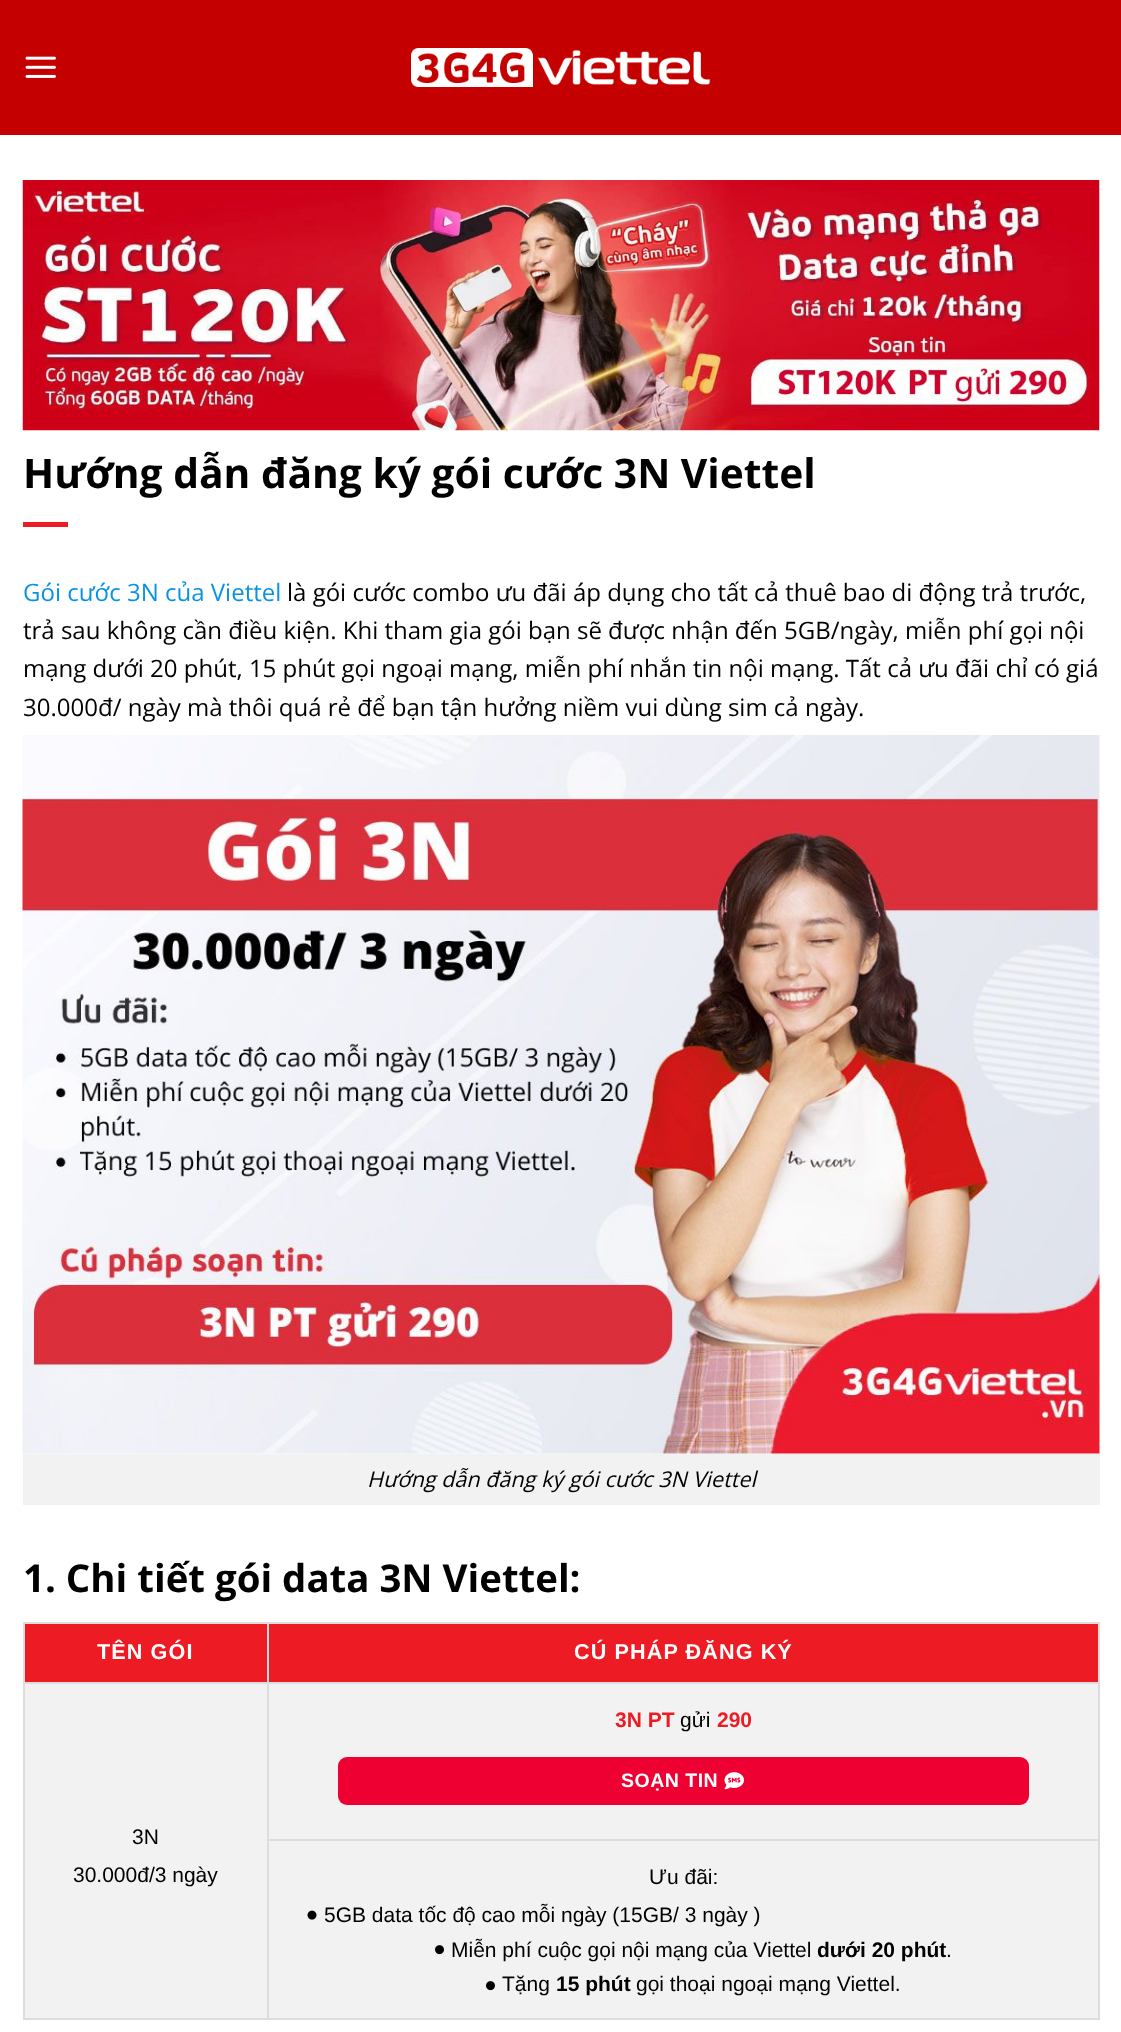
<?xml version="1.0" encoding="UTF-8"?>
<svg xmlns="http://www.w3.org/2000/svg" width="1121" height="2032">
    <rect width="100%" height="100%" fill="#FFFFFF"/>
    <rect x="0" y="0" width="1121" height="135" fill="#C50000"/>
    <image x="25" y="56" width="31" height="22" href="img_01.png"/>
    <image x="411" y="48" width="300" height="39" href="img_02.png"/>
    <image x="22" y="180" width="1078" height="251" href="img_03.png"/>
    <text x="23" y="488" font-family="Open Sans" font-size="40.75" font-weight="700" fill="#000000">Hướng dẫn đăng ký gói cước 3N Viettel</text>
    <rect x="23" y="522" width="45" height="5" fill="#ED1C24"/>
    <text x="23" y="601" font-family="Open Sans" font-size="24" fill="#0693E3">Gói cước 3N của Viettel</text>
    <text x="287" y="601" font-family="Open Sans" font-size="24" fill="#000000">là gói cước combo ưu đãi áp dụng cho tất cả thuê bao di động trả trước,</text>
    <text font-family="Open Sans" font-size="24" fill="#000000">
        <tspan x="23" y="639">trả sau không cần điều kiện. Khi tham gia gói bạn sẽ được nhận đến 5GB/ngày, miễn phí gọi nội</tspan>
        <tspan x="23" y="677">mạng dưới 20 phút, 15 phút gọi ngoại mạng, miễn phí nhắn tin nội mạng. Tất cả ưu đãi chỉ có giá</tspan>
        <tspan x="23" y="716">30.000đ/ ngày mà thôi quá rẻ để bạn tận hưởng niềm vui dùng sim cả ngày.</tspan>
    </text>
    <image x="22" y="735" width="1078" height="719" href="img_04.png"/>
    <rect x="23" y="1454" width="1077" height="51" fill="#F2F2F2"/>
    <text x="367" y="1487" font-family="Open Sans" font-size="21.6" font-style="italic" fill="#000000">Hướng dẫn đăng ký gói cước 3N Viettel</text>
    <text x="23" y="1592" font-family="Open Sans" font-size="38.4" font-weight="700" fill="#000000">1. Chi tiết gói data 3N Viettel:</text>
    <rect x="25" y="1624" width="242" height="58" fill="#ED1C24"/>
    <rect x="267" y="1622" width="833" height="2" fill="#DDDDDD"/>
    <rect x="267" y="1682" width="833" height="2" fill="#DDDDDD"/>
    <rect x="25" y="1684" width="1073" height="334" fill="#F2F2F2"/>
    <rect x="267" y="1839" width="833" height="2" fill="#DDDDDD"/>
    <rect x="1098" y="1839" width="2" height="180" fill="#DDDDDD"/>
    <rect x="267" y="2018" width="833" height="2" fill="#DDDDDD"/>
    <rect x="267" y="1839" width="2" height="180" fill="#DDDDDD"/>
    <rect x="267" y="1682" width="2" height="159" fill="#DDDDDD"/>
    <rect x="23" y="1682" width="246" height="2" fill="#DDDDDD"/>
    <rect x="267" y="1622" width="2" height="61" fill="#DDDDDD"/>
    <rect x="23" y="1622" width="246" height="2" fill="#DDDDDD"/>
    <rect x="23" y="2018" width="246" height="2" fill="#DDDDDD"/>
    <rect x="23" y="1682" width="2" height="337" fill="#DDDDDD"/>
    <rect x="23" y="1622" width="2" height="61" fill="#DDDDDD"/>
    <text x="97" y="1659" font-family="Liberation Sans" font-size="21.6" font-weight="700" letter-spacing="1.1" fill="#FFFFFF">TÊN GÓI</text>
    <rect x="269" y="1624" width="829" height="58" fill="#ED1C24"/>
    <rect x="1098" y="1682" width="2" height="159" fill="#DDDDDD"/>
    <rect x="1098" y="1622" width="2" height="61" fill="#DDDDDD"/>
    <text x="574" y="1659" font-family="Liberation Sans" font-size="21.6" font-weight="700" letter-spacing="1.1" fill="#FFFFFF">CÚ PHÁP ĐĂNG KÝ</text>
    <text x="615" y="1727" font-family="Liberation Sans" font-size="21" font-weight="700" fill="#ED1C24">3N PT</text>
    <text x="680" y="1727" font-family="Liberation Sans" font-size="21" fill="#000000">gửi</text>
    <text x="717" y="1727" font-family="Liberation Sans" font-size="21" font-weight="700" fill="#ED1C24">290</text>
    <rect x="338" y="1757" width="691" height="48" rx="9" fill="#EE0033"/>
    <text x="621" y="1787" font-family="Liberation Sans" font-size="19.5" font-weight="700" letter-spacing="0.5" fill="#FFFFFF">SOẠN TIN</text>
    <image x="724" y="1772" width="20" height="18" href="img_05.png"/>
    <text x="132" y="1844" font-family="Liberation Sans" font-size="21" fill="#000000">3N</text>
    <text x="73" y="1882" font-family="Liberation Sans" font-size="21" fill="#000000">30.000đ/3 ngày</text>
    <text x="649" y="1884" font-family="Liberation Sans" font-size="21" fill="#000000">Ưu đãi:</text>
    <image x="307" y="1910" width="10" height="10" href="img_06.png"/>
    <text x="324" y="1922" font-family="Liberation Sans" font-size="21" fill="#000000">5GB data tốc độ cao mỗi ngày (15GB/ 3 ngày )</text>
    <image x="435" y="1945" width="9" height="10" href="img_07.png"/>
    <text x="451" y="1957" font-family="Liberation Sans" font-size="21" fill="#000000">Miễn phí cuộc gọi nội mạng của Viettel</text>
    <text x="817" y="1957" font-family="Liberation Sans" font-size="21" font-weight="700" fill="#000000">dưới 20 phút</text>
    <text x="946" y="1957" font-family="Liberation Sans" font-size="21" fill="#000000">.</text>
    <image x="486" y="1981" width="9" height="10" href="img_07.png"/>
    <text x="502" y="1991" font-family="Liberation Sans" font-size="21" fill="#000000">Tặng</text>
    <text x="556" y="1991" font-family="Liberation Sans" font-size="21" font-weight="700" fill="#000000">15 phút</text>
    <text x="636" y="1991" font-family="Liberation Sans" font-size="21" fill="#000000">gọi thoại ngoại mạng Viettel.</text>
</svg>
